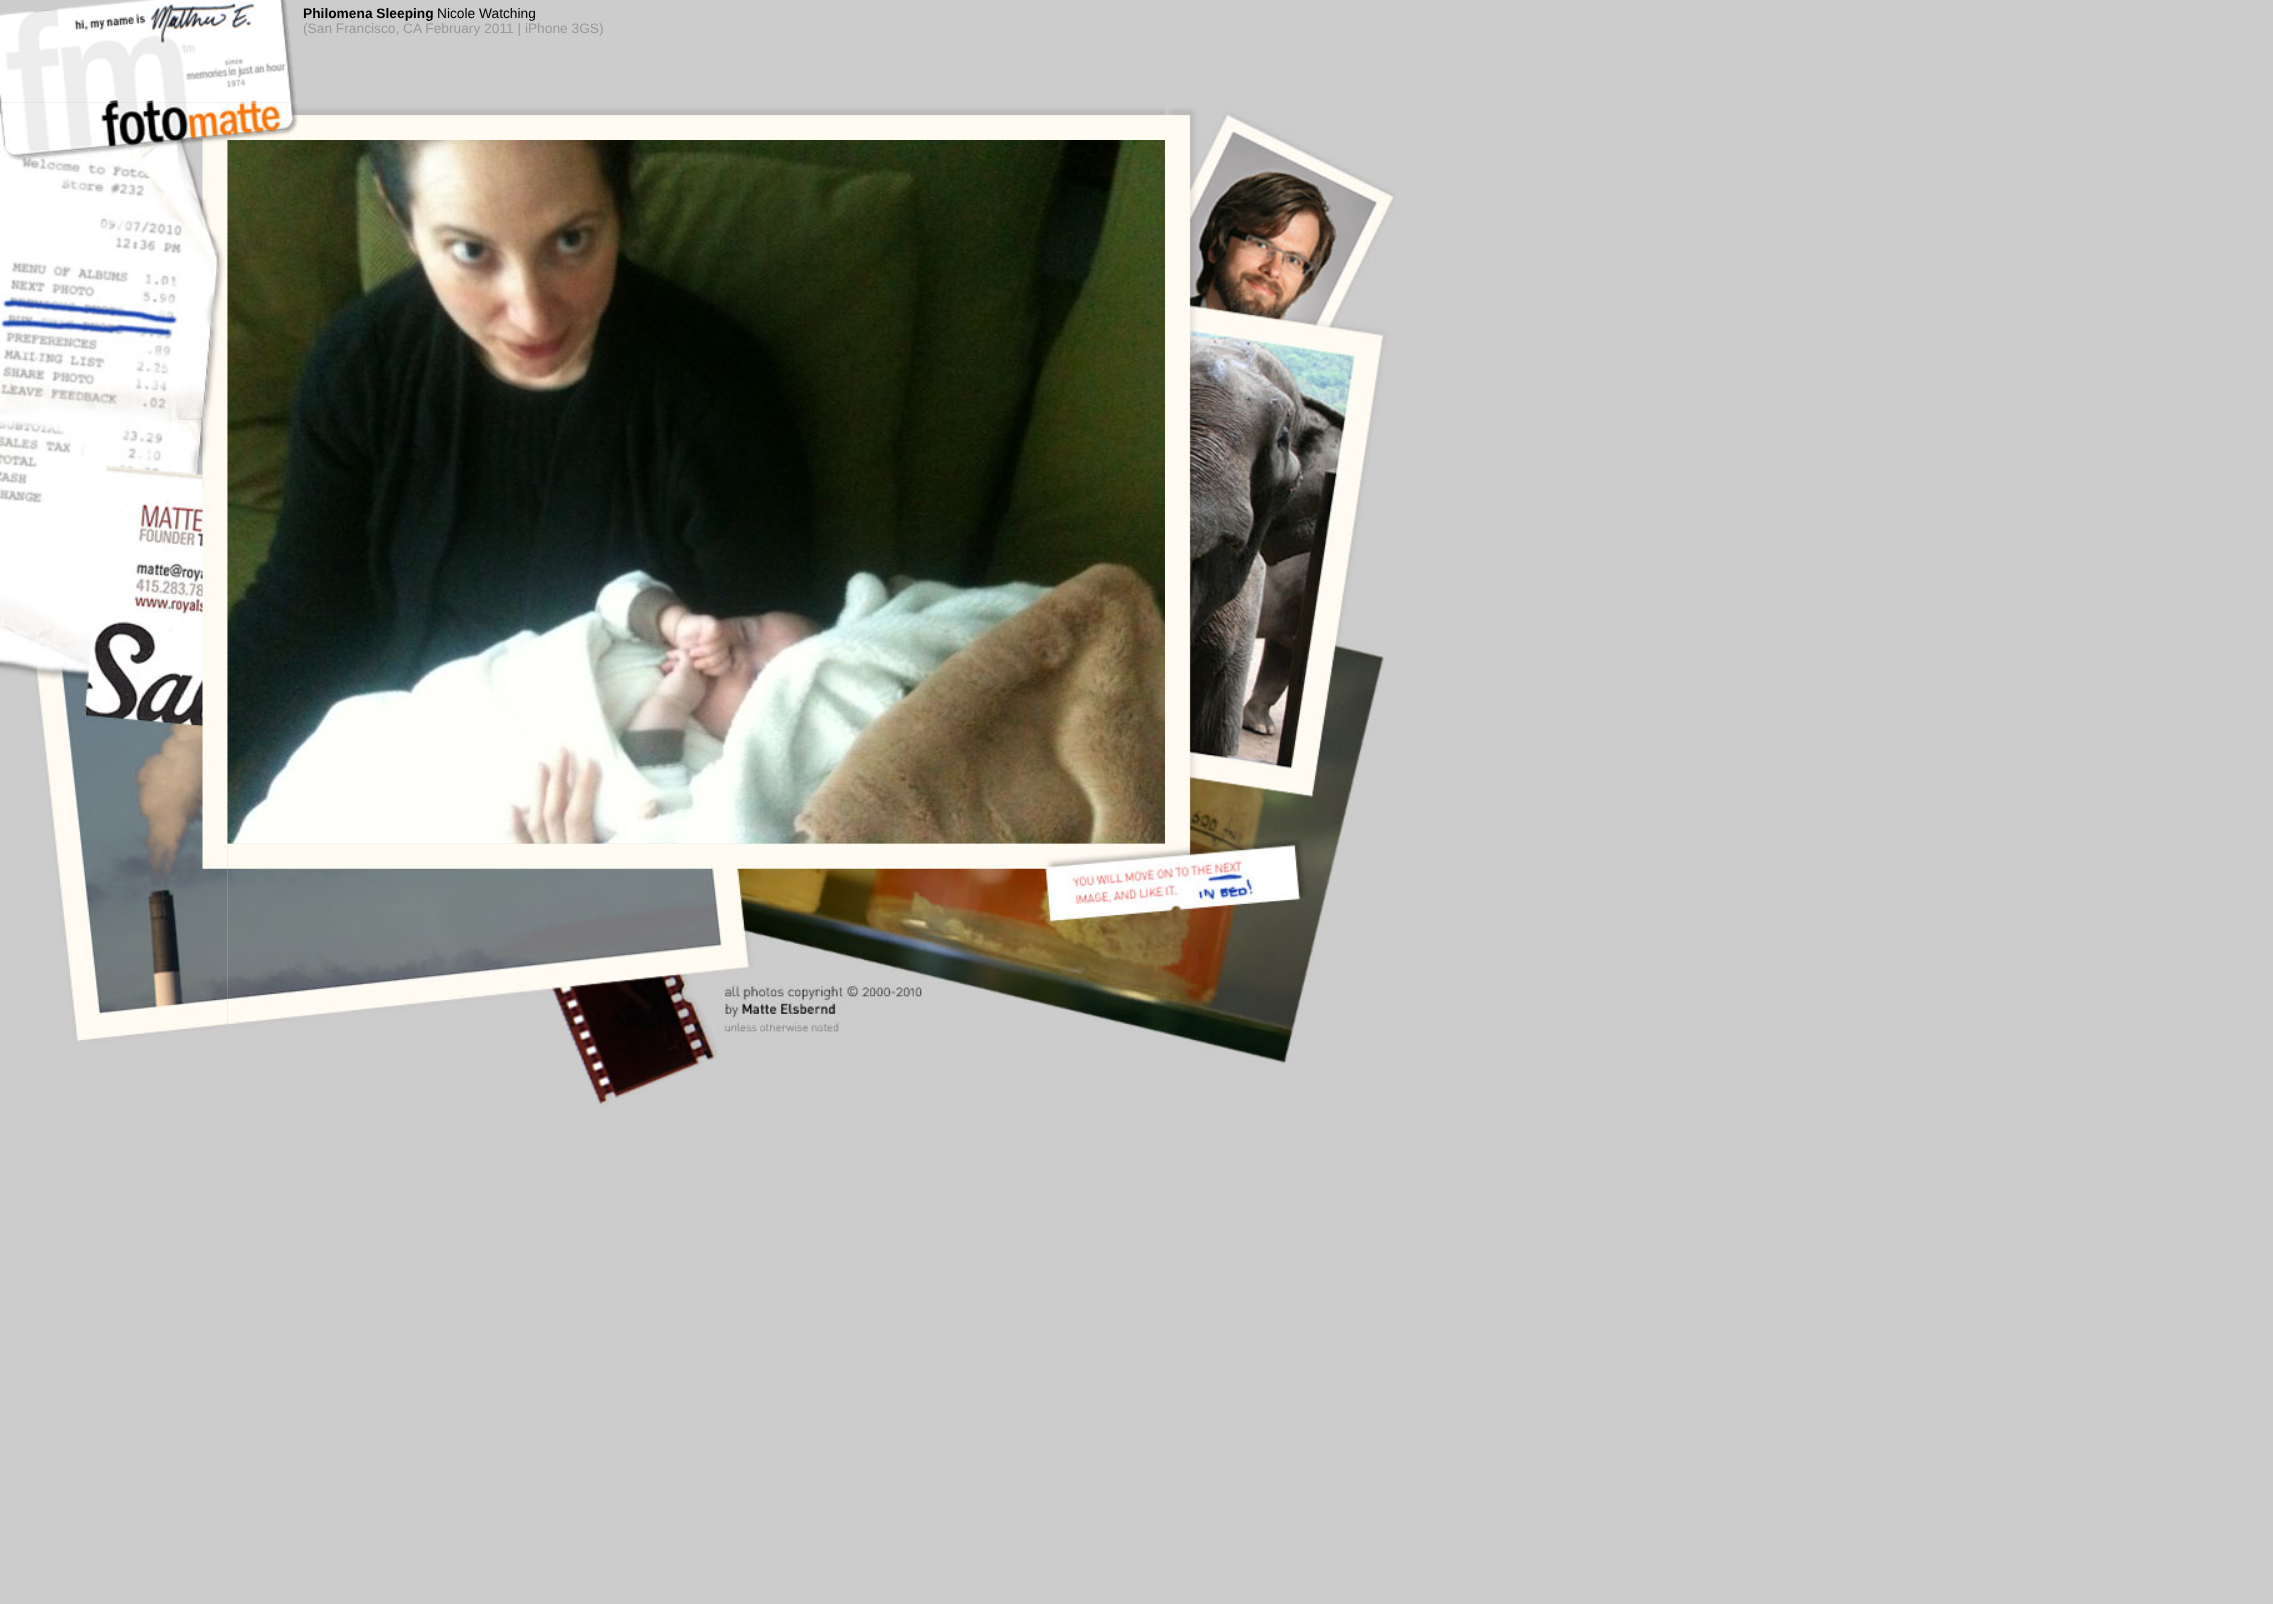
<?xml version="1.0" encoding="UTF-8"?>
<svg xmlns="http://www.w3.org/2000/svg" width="2273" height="1604">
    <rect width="100%" height="100%" fill="#CCCCCC"/>
    <image x="0" y="0" width="296" height="103" href="img_01.png"/>
    <text x="303" y="18" font-family="Liberation Sans" font-size="13.75" font-weight="700" fill="#000000">Philomena Sleeping</text>
    <text x="437" y="18" font-family="Liberation Sans" font-size="13.75" fill="#000000">Nicole Watching</text>
    <text x="303" y="33" font-family="Liberation Sans" font-size="13.75" fill="#999999">(San Francisco, CA February 2011 | iPhone 3GS)</text>
    <image x="0" y="102" width="228" height="941" href="img_02.png"/>
    <image x="227" y="102" width="938" height="38" href="img_03.png"/>
    <image x="1165" y="108" width="230" height="956" href="img_04.png"/>
    <image x="227" y="140" width="938" height="704" href="img_05.png"/>
    <image x="227" y="843" width="938" height="262" href="img_06.png"/>
</svg>
